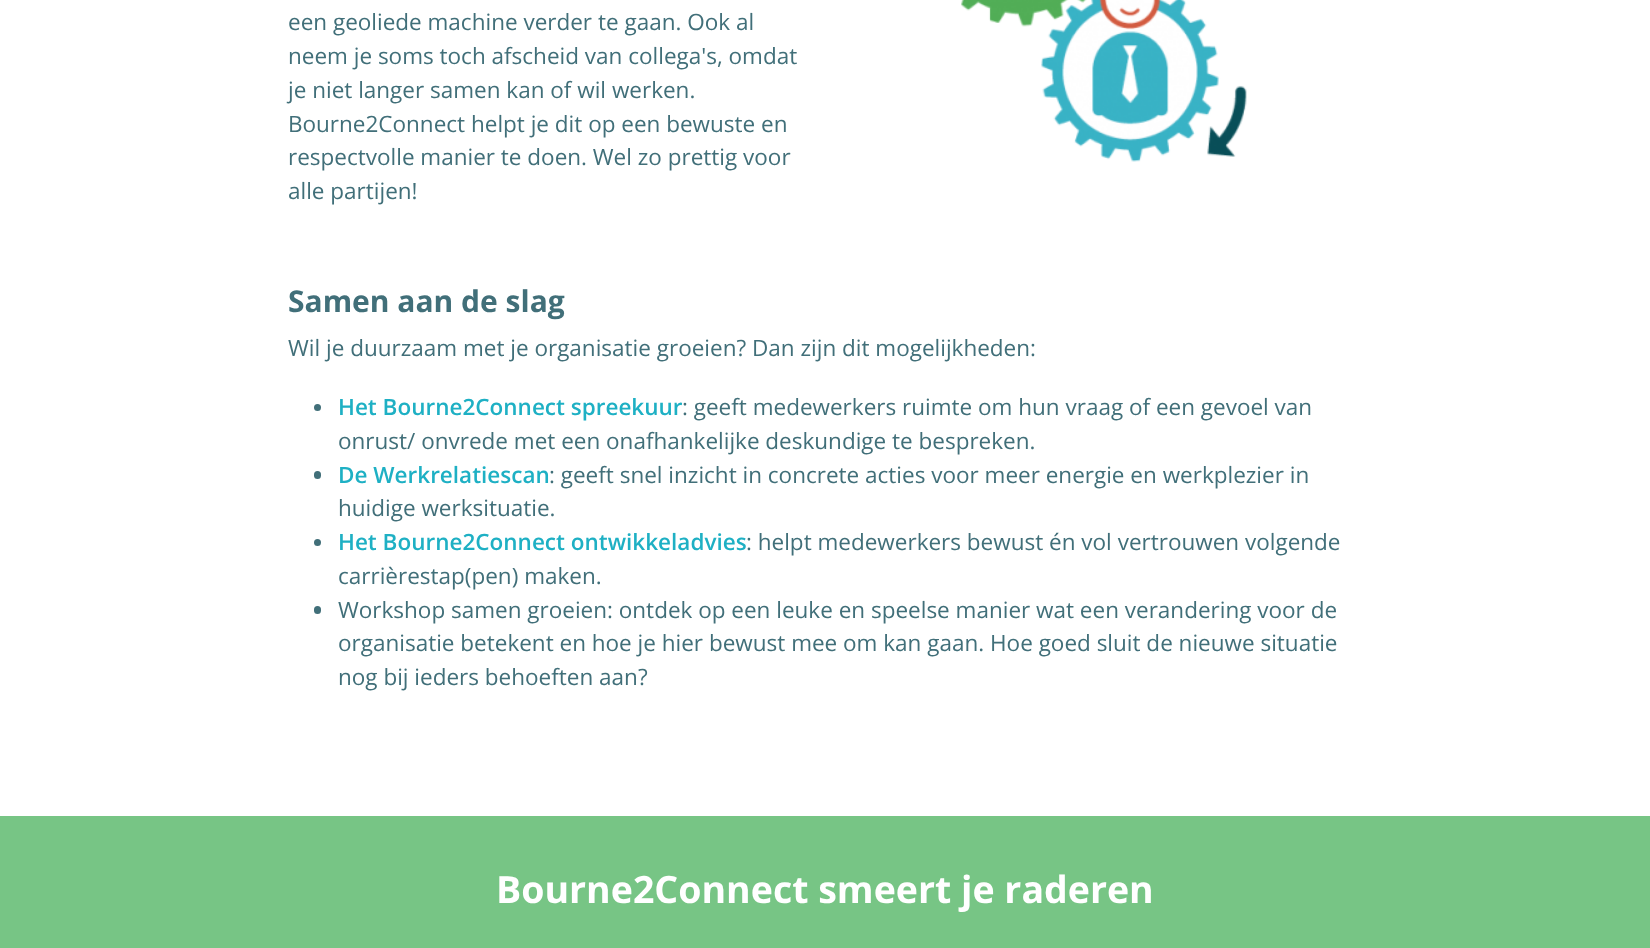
<?xml version="1.0" encoding="UTF-8"?>
<svg xmlns="http://www.w3.org/2000/svg" width="1650" height="948">
    <rect width="100%" height="100%" fill="#FFFFFF"/>
    <text font-family="Open Sans" font-size="22.5" fill="#416F79">
        <tspan x="288" y="30">een geoliede machine verder te gaan. Ook al</tspan>
        <tspan x="288" y="64">neem je soms toch afscheid van collega's, omdat</tspan>
        <tspan x="288" y="98">je niet langer samen kan of wil werken.</tspan>
        <tspan x="288" y="132">Bourne2Connect helpt je dit op een bewuste en</tspan>
        <tspan x="288" y="165">respectvolle manier te doen. Wel zo prettig voor</tspan>
        <tspan x="288" y="199">alle partijen!</tspan>
    </text>
    <image x="961" y="0" width="286" height="162" href="img_01.png"/>
    <text x="288" y="312" font-family="Open Sans" font-size="30" font-weight="700" fill="#416F79">Samen aan de slag</text>
    <text x="288" y="356" font-family="Open Sans" font-size="22.5" fill="#416F79">Wil je duurzaam met je organisatie groeien? Dan zijn dit mogelijkheden:</text>
    <circle cx="317.5" cy="407.5" r="3.5" fill="#416F79"/>
    <text x="338" y="415" font-family="Open Sans" font-size="22.5" font-weight="600" fill="#1EB0C4">Het Bourne2Connect spreekuur</text>
    <text x="682" y="415" font-family="Open Sans" font-size="22.5" fill="#416F79">: geeft medewerkers ruimte om hun vraag of een gevoel van</text>
    <text x="338" y="449" font-family="Open Sans" font-size="22.5" fill="#416F79">onrust/ onvrede met een onafhankelijke deskundige te bespreken.</text>
    <rect x="314" y="471" width="7" height="8" rx="3.5" fill="#416F79"/>
    <text x="338" y="483" font-family="Open Sans" font-size="22.5" font-weight="600" fill="#1EB0C4">De Werkrelatiescan</text>
    <text x="549" y="483" font-family="Open Sans" font-size="22.5" fill="#416F79">: geeft snel inzicht in concrete acties voor meer energie en werkplezier in</text>
    <text x="338" y="516" font-family="Open Sans" font-size="22.5" fill="#416F79">huidige werksituatie.</text>
    <circle cx="317.5" cy="542.5" r="3.5" fill="#416F79"/>
    <text x="338" y="550" font-family="Open Sans" font-size="22.5" font-weight="600" fill="#1EB0C4">Het Bourne2Connect ontwikkeladvies</text>
    <text x="746" y="550" font-family="Open Sans" font-size="22.5" fill="#416F79">: helpt medewerkers bewust én vol vertrouwen volgende</text>
    <text x="338" y="584" font-family="Open Sans" font-size="22.5" fill="#416F79">carrièrestap(pen) maken.</text>
    <rect x="314" y="606" width="7" height="8" rx="3.5" fill="#416F79"/>
    <text font-family="Open Sans" font-size="22.5" fill="#416F79">
        <tspan x="338" y="618">Workshop samen groeien: ontdek op een leuke en speelse manier wat een verandering voor de</tspan>
        <tspan x="338" y="651">organisatie betekent en hoe je hier bewust mee om kan gaan. Hoe goed sluit de nieuwe situatie</tspan>
        <tspan x="338" y="685">nog bij ieders behoeften aan?</tspan>
    </text>
    <rect x="0" y="816" width="1650" height="132" fill="#77C585"/>
    <text x="496" y="903" font-family="Open Sans" font-size="37.5" font-weight="700" fill="#FFFFFF">Bourne2Connect smeert je raderen</text>
</svg>
